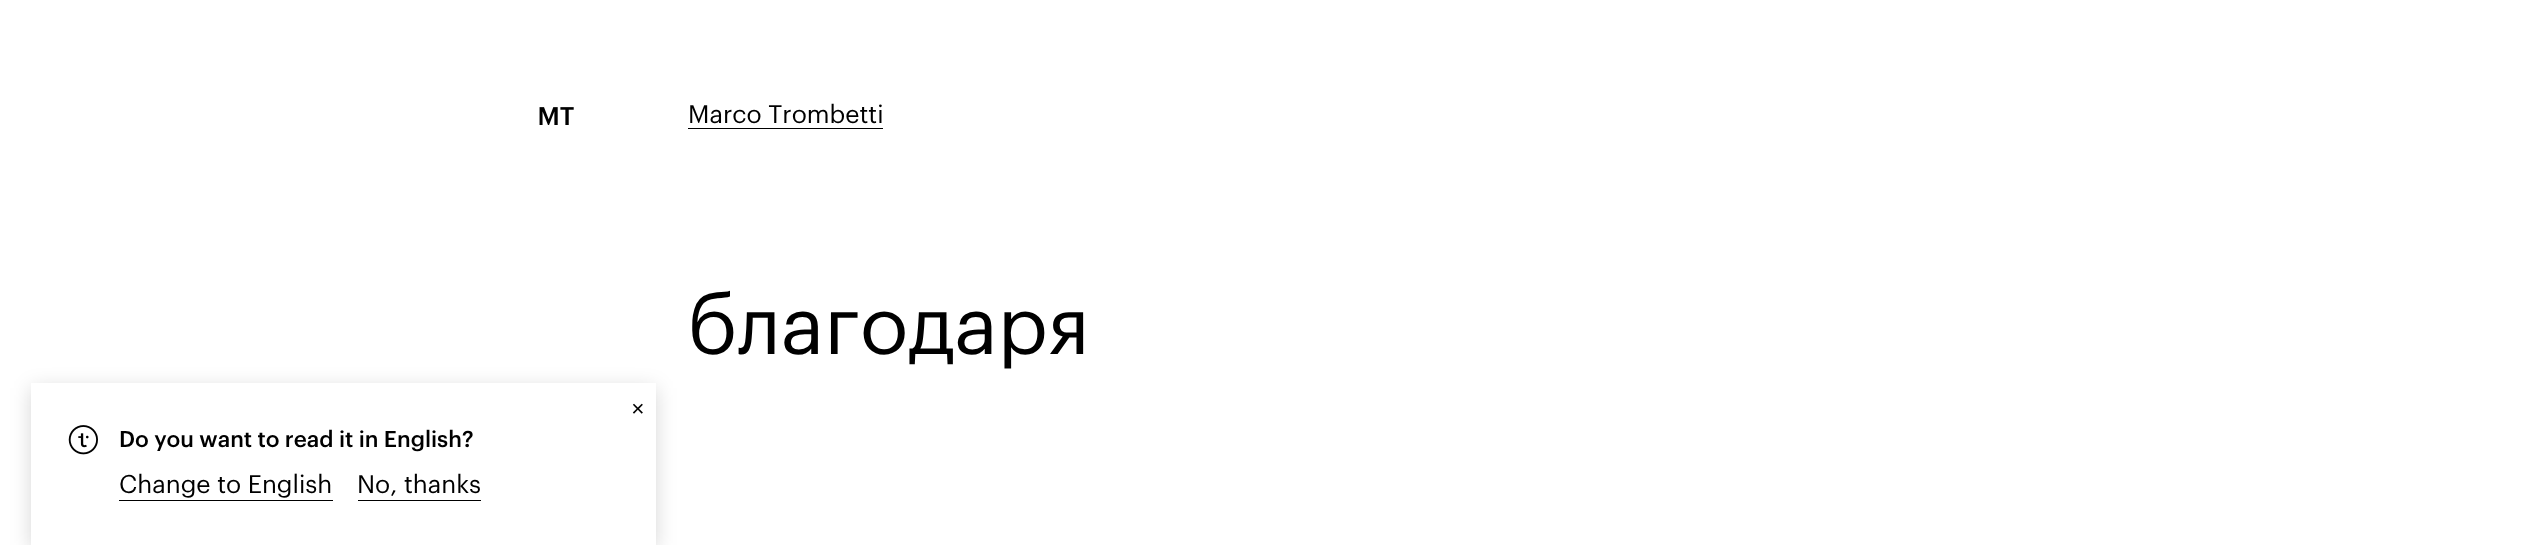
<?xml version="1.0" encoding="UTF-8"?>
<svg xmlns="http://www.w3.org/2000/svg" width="2525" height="545">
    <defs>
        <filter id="blur1" x="-50%" y="-200%" width="200%" height="500%"><feGaussianBlur stdDeviation="10"/></filter>
    </defs>
    <rect width="100%" height="100%" fill="#FFFFFF"/>
    <rect x="688" y="128" width="195" height="1" fill="#000000"/>
    <image x="539" y="107" width="35" height="18" href="img_01.png"/>
    <text x="688" y="123" font-family="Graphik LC" font-size="25" fill="#000000">Marco Trombetti</text>
    <text x="688" y="354" font-family="Graphik LC" font-size="80" fill="#000000">благодаря</text>
    <rect x="31" y="388" width="625" height="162" fill="#000000" fill-opacity="0.16" filter="url(#blur1)"/>
    <rect x="31" y="383" width="625" height="162" fill="#FFFFFF"/>
    <text x="632" y="417" font-family="Graphik LC" font-size="25" fill="#000000">×</text>
    <image x="68" y="425" width="30" height="30" href="img_02.png"/>
    <text x="119" y="447" font-family="Graphik LC" font-size="22.5" font-weight="500" fill="#000000">Do you want to read it in English?</text>
    <rect x="119" y="500" width="214" height="1" fill="#000000"/>
    <text x="119" y="493" font-family="Graphik LC" font-size="25" fill="#000000">Change to English</text>
    <rect x="358" y="500" width="123" height="1" fill="#000000"/>
    <text x="357" y="493" font-family="Graphik LC" font-size="25" fill="#000000">No, thanks</text>
</svg>
